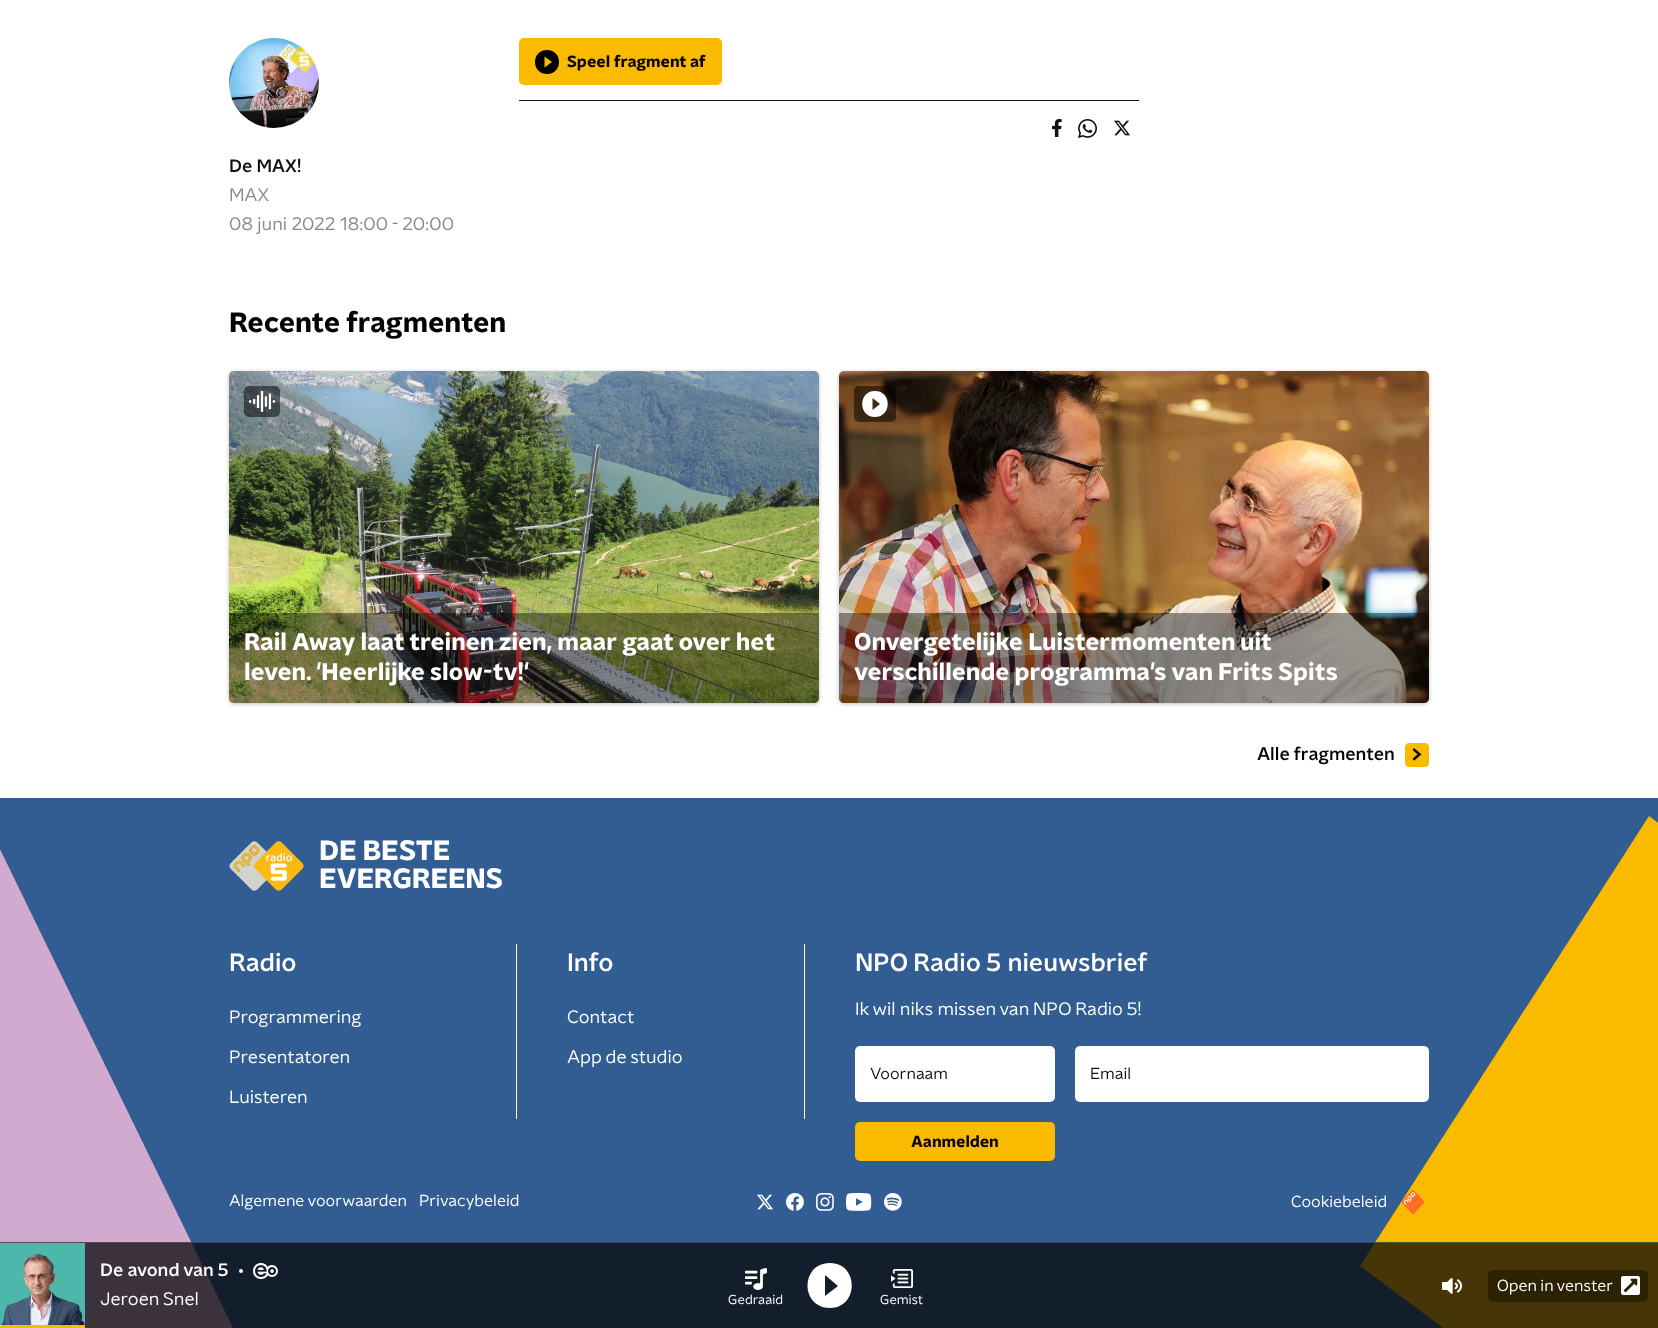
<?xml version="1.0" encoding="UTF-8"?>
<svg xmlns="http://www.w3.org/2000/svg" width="1658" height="1328">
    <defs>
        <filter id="blur1" x="-50%" y="-200%" width="200%" height="500%"><feGaussianBlur stdDeviation="2"/></filter>
    </defs>
    <rect width="100%" height="100%" fill="#FFFFFF"/>
    <rect x="519" y="38" width="203" height="47" rx="5" fill="#FABA00"/>
    <path d="M 547 50 C 531 50 531 74 547 74 C 563 74 563 50 547 50 Z M 544.5 67.5 V 56.5 L 552 62 Z" fill="#000000"/>
    <text x="567" y="67" font-family="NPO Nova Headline" font-size="16" font-weight="700" fill="#030303">Speel fragment af</text>
    <rect x="519" y="100" width="620" height="1" fill="#101010"/>
    <image x="1052" y="119" width="10" height="18" href="img_01.png"/>
    <image x="1078" y="119" width="19" height="19" href="img_02.png"/>
    <image x="1114" y="120" width="16" height="16" href="img_03.png"/>
    <image x="229" y="38" width="90" height="90" href="img_04.png"/>
    <text x="229" y="172" font-family="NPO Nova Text" font-size="18" font-weight="500" fill="#101010">De MAX!</text>
    <text font-family="NPO Nova Text" font-size="18" fill="#888888">
        <tspan x="229" y="201">MAX</tspan>
        <tspan x="229" y="230">08 juni 2022 18:00 - 20:00</tspan>
    </text>
    <text x="229" y="332" font-family="NPO Nova Headline" font-size="28" font-weight="700" fill="#030303">Recente fragmenten</text>
    <rect x="229" y="372" width="590" height="332" rx="5" fill="#000000" fill-opacity="0.25" filter="url(#blur1)"/>
    <image x="229" y="371" width="590" height="332" href="img_05.png"/>
    <rect x="244" y="386" width="36" height="31" rx="5" fill="#000000" fill-opacity="0.5"/>
    <image x="249" y="391" width="26" height="21" href="img_06.png"/>
    <path d="M 229 613 H 819 V 698 C 819 701 817 703 814 703 H 234 C 231 703 229 701 229 698 Z" fill="#000000" fill-opacity="0.4"/>
    <text font-family="NPO Nova Headline" font-size="24" font-weight="700" fill="#FFFFFF">
        <tspan x="244" y="650">Rail Away laat treinen zien, maar gaat over het</tspan>
        <tspan x="244" y="680">leven. 'Heerlijke slow-tv!'</tspan>
    </text>
    <rect x="839" y="372" width="590" height="332" rx="5" fill="#000000" fill-opacity="0.25" filter="url(#blur1)"/>
    <image x="839" y="371" width="590" height="332" href="img_07.png"/>
    <rect x="854" y="386" width="42" height="36" rx="5" fill="#000000" fill-opacity="0.5"/>
    <path d="M 875 391 C 858 391 858 417 875 417 C 892 417 892 391 875 391 Z M 872.5 410 V 398 L 880 404 Z" fill="#FFFFFF"/>
    <path d="M 839 613 H 1429 V 698 C 1429 701 1427 703 1424 703 H 844 C 841 703 839 701 839 698 Z" fill="#000000" fill-opacity="0.4"/>
    <text font-family="NPO Nova Headline" font-size="24" font-weight="700" fill="#FFFFFF">
        <tspan x="854" y="650">Onvergetelijke Luistermomenten uit</tspan>
        <tspan x="854" y="680">verschillende programma's van Frits Spits</tspan>
    </text>
    <text x="1257" y="760" font-family="NPO Nova Text" font-size="18" font-weight="500" fill="#030303">Alle fragmenten</text>
    <image x="1405" y="743" width="24" height="24" href="img_08.png"/>
    <rect x="0" y="798" width="1658" height="530" fill="#325D92"/>
    <path d="M -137 568 L -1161 895 L -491 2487 L 497 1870 Z" fill="#D2AAD0"/>
    <path d="M 1360 1266 L 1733 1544 L 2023 1093 L 1649 816 Z" fill="#FABA00"/>
    <image x="229" y="841" width="75" height="50" href="img_09.png"/>
    <text font-family="NPO Nova Headline" font-size="28" font-weight="700" fill="#FFFFFF">
        <tspan x="319" y="860">DE BESTE</tspan>
        <tspan x="319" y="888">EVERGREENS</tspan>
    </text>
    <rect x="804" y="944" width="1" height="175" fill="#FFFFFF"/>
    <text x="229" y="971" font-family="NPO Nova Text" font-size="25" font-weight="500" fill="#FFFFFF">Radio</text>
    <text x="229" y="1023" font-family="NPO Nova Text" font-size="18" fill="#FFFFFF">Programmering</text>
    <text x="229" y="1063" font-family="NPO Nova Text" font-size="18" fill="#FFFFFF">Presentatoren</text>
    <text x="229" y="1103" font-family="NPO Nova Text" font-size="18" fill="#FFFFFF">Luisteren</text>
    <rect x="516" y="944" width="1" height="175" fill="#FFFFFF"/>
    <text x="567" y="971" font-family="NPO Nova Text" font-size="25" font-weight="500" fill="#FFFFFF">Info</text>
    <text x="567" y="1023" font-family="NPO Nova Text" font-size="18" fill="#FFFFFF">Contact</text>
    <text x="567" y="1063" font-family="NPO Nova Text" font-size="18" fill="#FFFFFF">App de studio</text>
    <text x="855" y="971" font-family="NPO Nova Text" font-size="25" font-weight="500" fill="#FFFFFF">NPO Radio 5 nieuwsbrief</text>
    <text x="855" y="1015" font-family="NPO Nova Text" font-size="18" fill="#FFFFFF">Ik wil niks missen van NPO Radio 5!</text>
    <rect x="855" y="1046" width="200" height="56" rx="5" fill="#FFFFFF"/>
    <text x="870" y="1079" font-family="NPO Nova Text" font-size="16" fill="#101010">Voornaam</text>
    <rect x="1075" y="1046" width="354" height="56" rx="5" fill="#FFFFFF"/>
    <text x="1090" y="1079" font-family="NPO Nova Text" font-size="16" fill="#101010">Email</text>
    <rect x="855" y="1122" width="200" height="39" rx="5" fill="#FABA00"/>
    <text x="911" y="1147" font-family="NPO Nova Headline" font-size="16" font-weight="700" fill="#030303">Aanmelden</text>
    <text x="229" y="1206" font-family="NPO Nova Text" font-size="16" fill="#FFFFFF">Algemene voorwaarden</text>
    <text x="419" y="1206" font-family="NPO Nova Text" font-size="16" fill="#FFFFFF">Privacybeleid</text>
    <image x="757" y="1194" width="16" height="16" href="img_10.png"/>
    <image x="786" y="1193" width="18" height="18" href="img_11.png"/>
    <image x="816" y="1193" width="18" height="18" href="img_12.png"/>
    <image x="846" y="1193" width="26" height="18" href="img_13.png"/>
    <image x="884" y="1193" width="18" height="18" href="img_14.png"/>
    <text x="1291" y="1207" font-family="NPO Nova Text" font-size="16" fill="#FFFFFF">Cookiebeleid</text>
    <image x="1401" y="1190" width="23" height="24" href="img_15.png"/>
    <rect x="0" y="1242" width="1658" height="86" fill="#090909" fill-opacity="0.75"/>
    <rect x="0" y="1242" width="1658" height="1" fill="#5F5F5F" fill-opacity="0.65"/>
    <image x="0" y="1243" width="85" height="82" href="img_16.png"/>
    <rect x="0" y="1325" width="85" height="3" fill="#FABA00"/>
    <text x="100" y="1276" font-family="NPO Nova Text" font-size="18" font-weight="500" fill="#FFFFFF">De avond van 5</text>
    <circle cx="241" cy="1271" r="2" fill="#FFFFFF"/>
    <image x="253" y="1263" width="25" height="16" href="img_17.png"/>
    <text x="100" y="1305" font-family="NPO Nova Text" font-size="18" fill="#FFFFFF">Jeroen Snel</text>
    <image x="1442" y="1278" width="20" height="16" href="img_18.png"/>
    <rect x="1488" y="1270" width="160" height="32" rx="5" fill="#2D2304"/>
    <text x="1497" y="1291" font-family="NPO Nova Text" font-size="16" fill="#FFFFFF">Open in venster</text>
    <image x="1621" y="1276" width="19" height="19" href="img_19.png"/>
    <image x="745" y="1268" width="22" height="22" href="img_20.png"/>
    <text x="728" y="1304" font-family="NPO Nova Text" font-size="13" fill="#FFFFFF">Gedraaid</text>
    <path d="M 830 1263 C 800 1263 800 1308 830 1308 C 859 1308 859 1263 830 1263 Z M 825 1296 V 1275 L 838 1286 Z" fill="#FFFFFF"/>
    <image x="891" y="1269" width="22" height="19" href="img_21.png"/>
    <text x="880" y="1304" font-family="NPO Nova Text" font-size="13" fill="#FFFFFF">Gemist</text>
</svg>
